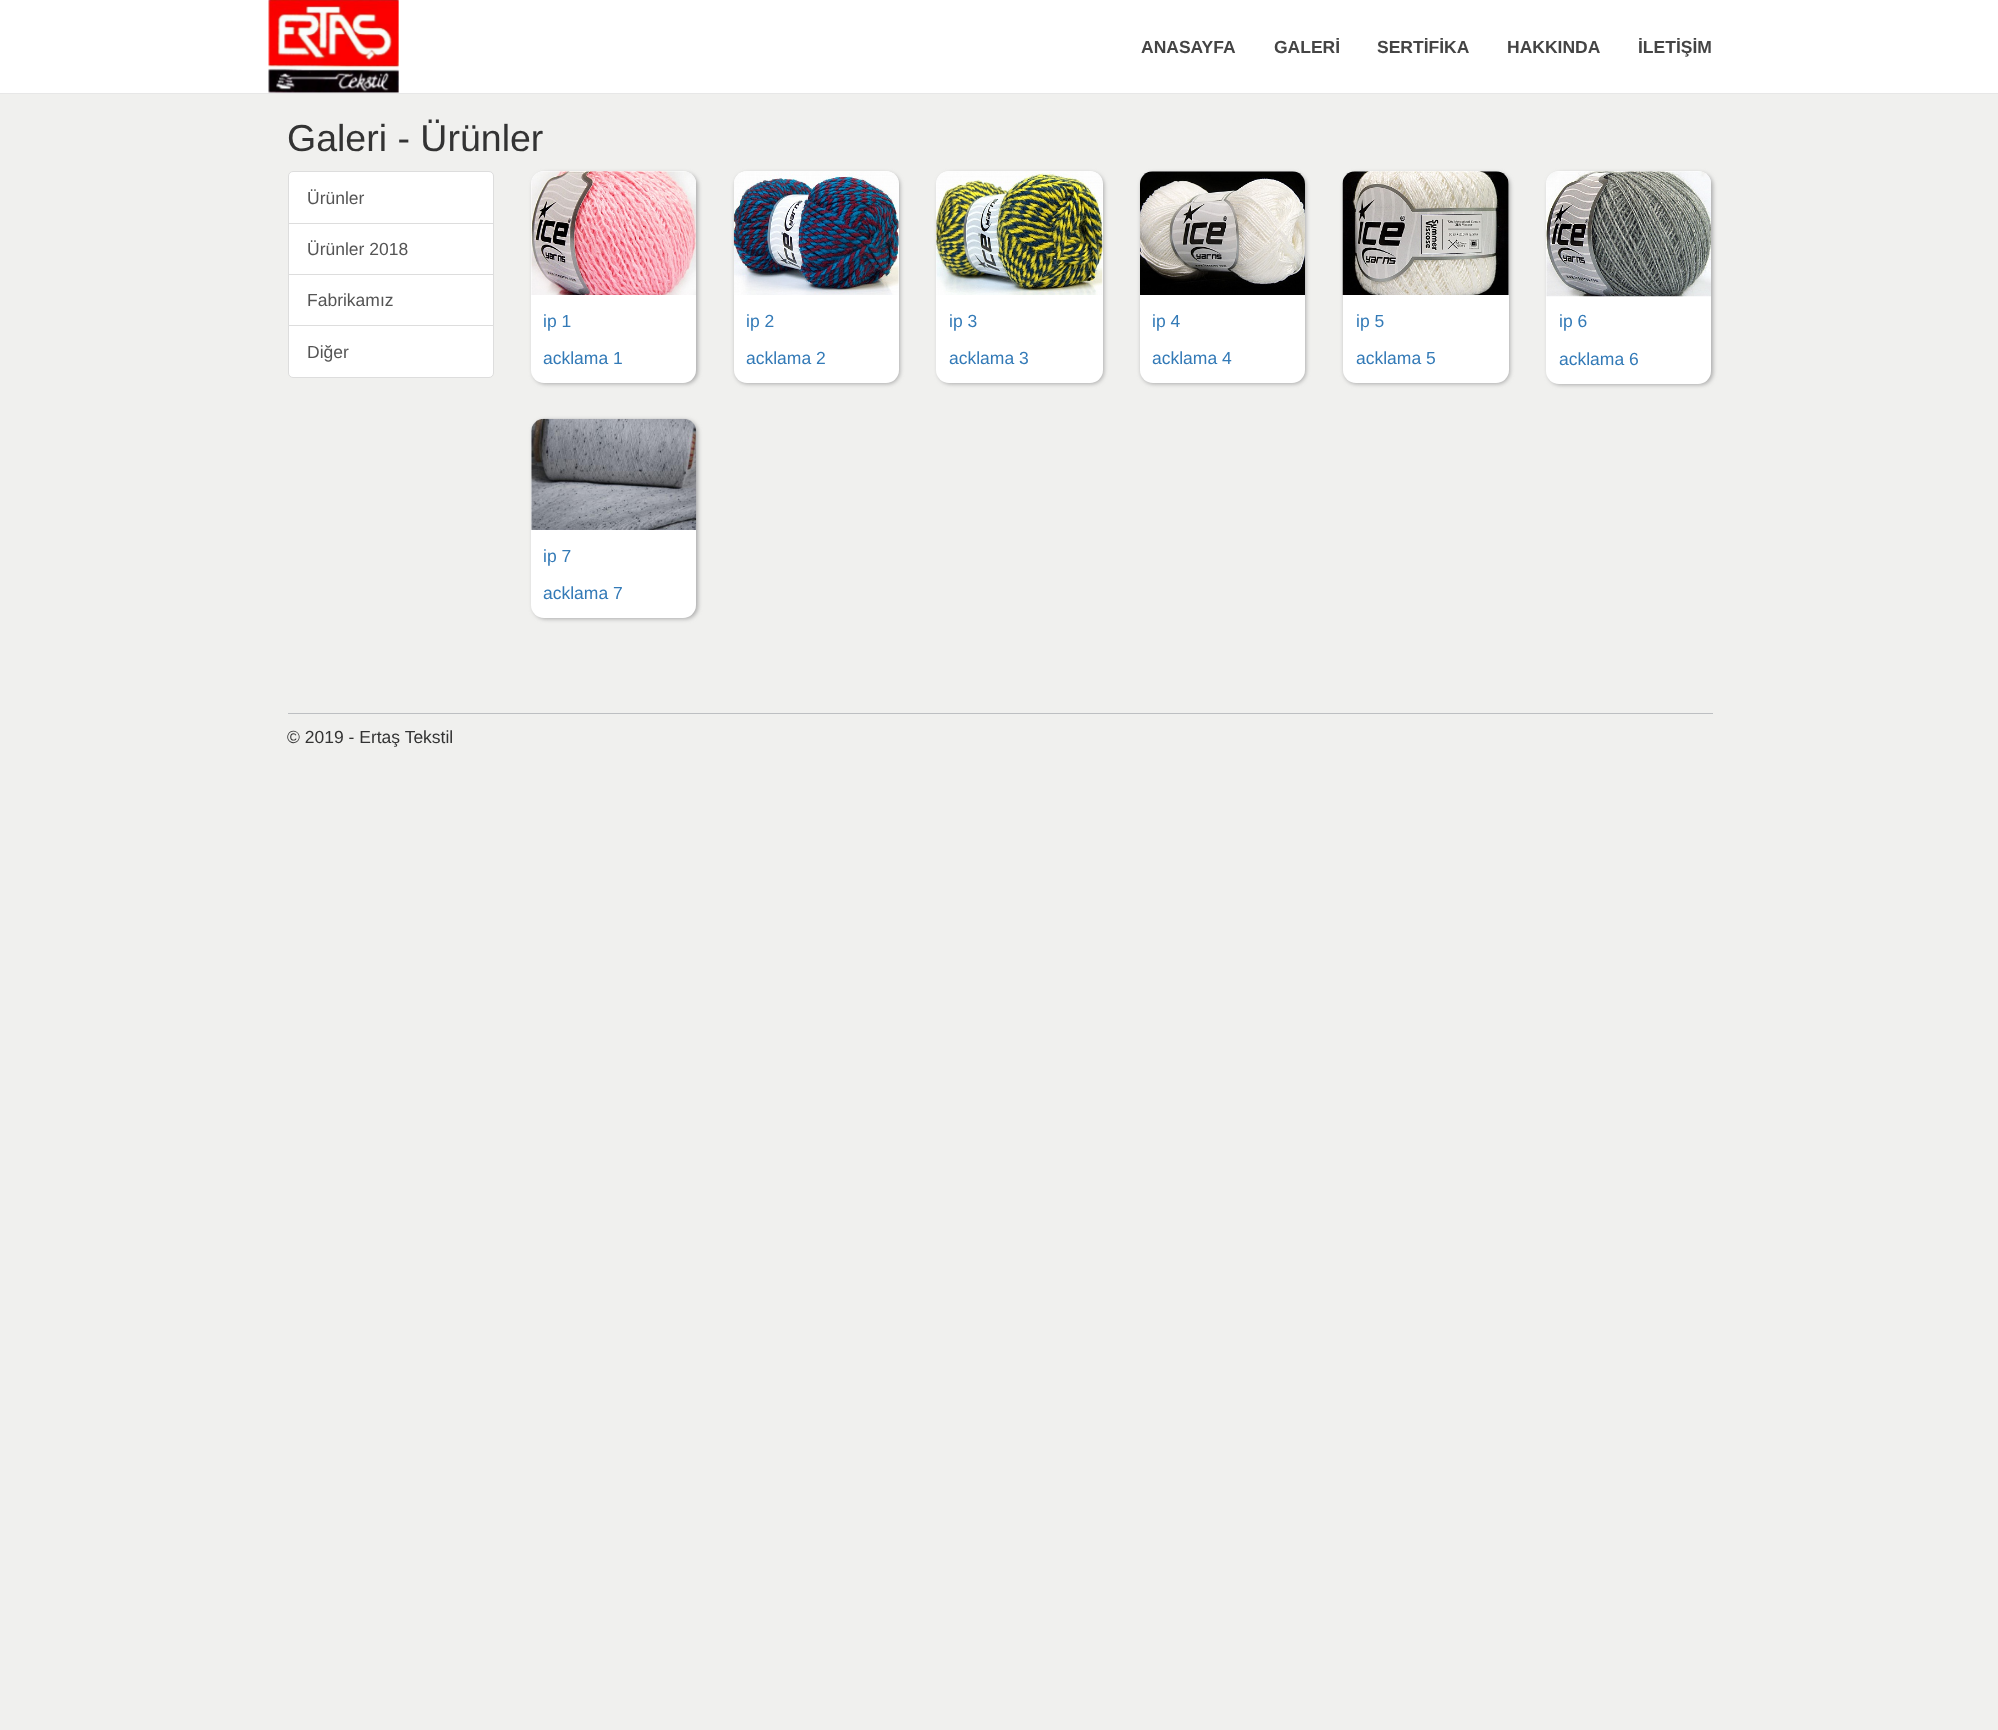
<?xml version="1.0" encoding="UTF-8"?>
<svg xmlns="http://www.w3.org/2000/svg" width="1998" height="1730">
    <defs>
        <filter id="blur1" x="-50%" y="-200%" width="200%" height="500%"><feGaussianBlur stdDeviation="2"/></filter>
    </defs>
    <rect width="100%" height="100%" fill="#F0F0EE"/>
    <rect x="0" y="0" width="1998" height="93" fill="#FFFFFF"/>
    <rect x="0" y="93" width="1998" height="1" fill="#E7E7E7"/>
    <image x="268" y="0" width="131" height="93" href="img_01.png"/>
    <text x="1141" y="53" font-family="Liberation Sans" font-size="17.5" font-weight="700" fill="#444444">ANASAYFA</text>
    <text x="1274" y="53" font-family="Liberation Sans" font-size="17.5" font-weight="700" fill="#444444">GALERİ</text>
    <text x="1377" y="53" font-family="Liberation Sans" font-size="17.5" font-weight="700" fill="#444444">SERTİFİKA</text>
    <text x="1507" y="53" font-family="Liberation Sans" font-size="17.5" font-weight="700" fill="#444444">HAKKINDA</text>
    <text x="1638" y="53" font-family="Liberation Sans" font-size="17.5" font-weight="700" fill="#444444">İLETİŞİM</text>
    <text x="287" y="151" font-family="Liberation Sans" font-size="37.5" fill="#333333">Galeri - Ürünler</text>
    <path d="M 293 171.5 H 489 C 491.5 171.5 493.5 173.5 493.5 176 V 223.5 H 288.5 V 176 C 288.5 173.5 290.5 171.5 293 171.5 Z" fill="#FFFFFF" stroke="#DDDDDD"/>
    <text x="307" y="204" font-family="Liberation Sans" font-size="17.5" fill="#555555">Ürünler</text>
    <rect x="288.5" y="223.5" width="205" height="51" fill="#FFFFFF" stroke="#DDDDDD"/>
    <text x="307" y="255" font-family="Liberation Sans" font-size="17.5" fill="#555555">Ürünler 2018</text>
    <rect x="288.5" y="274.5" width="205" height="51" fill="#FFFFFF" stroke="#DDDDDD"/>
    <text x="307" y="306" font-family="Liberation Sans" font-size="17.5" fill="#555555">Fabrikamız</text>
    <path d="M 288.5 325.5 H 493.5 V 373 C 493.5 375.5 491.5 377.5 489 377.5 H 293 C 290.5 377.5 288.5 375.5 288.5 373 Z" fill="#FFFFFF" stroke="#DDDDDD"/>
    <text x="307" y="358" font-family="Liberation Sans" font-size="17.5" fill="#555555">Diğer</text>
    <rect x="533" y="173" width="165" height="211" rx="13" fill="#ABABAB" filter="url(#blur1)"/>
    <rect x="531" y="171" width="165" height="212" rx="13" fill="#FFFFFF"/>
    <image x="531" y="171" width="165" height="124" href="img_02.png"/>
    <text x="543" y="327" font-family="Liberation Sans" font-size="17.5" fill="#337AB7">ip 1</text>
    <text x="543" y="364" font-family="Liberation Sans" font-size="17.5" fill="#337AB7">acklama 1</text>
    <rect x="735" y="173" width="165" height="211" rx="13" fill="#ABABAB" filter="url(#blur1)"/>
    <rect x="734" y="171" width="165" height="212" rx="13" fill="#FFFFFF"/>
    <image x="733" y="171" width="166" height="124" href="img_03.png"/>
    <text x="746" y="327" font-family="Liberation Sans" font-size="17.5" fill="#337AB7">ip 2</text>
    <text x="746" y="364" font-family="Liberation Sans" font-size="17.5" fill="#337AB7">acklama 2</text>
    <rect x="938" y="173" width="166" height="211" rx="13" fill="#ABABAB" filter="url(#blur1)"/>
    <rect x="936" y="171" width="167" height="212" rx="13" fill="#FFFFFF"/>
    <image x="936" y="171" width="167" height="124" href="img_04.png"/>
    <text x="949" y="327" font-family="Liberation Sans" font-size="17.5" fill="#337AB7">ip 3</text>
    <text x="949" y="364" font-family="Liberation Sans" font-size="17.5" fill="#337AB7">acklama 3</text>
    <rect x="1141" y="173" width="165" height="211" rx="13" fill="#ABABAB" filter="url(#blur1)"/>
    <rect x="1140" y="171" width="165" height="212" rx="13" fill="#FFFFFF"/>
    <image x="1140" y="171" width="165" height="124" href="img_05.png"/>
    <text x="1152" y="327" font-family="Liberation Sans" font-size="17.5" fill="#337AB7">ip 4</text>
    <text x="1152" y="364" font-family="Liberation Sans" font-size="17.5" fill="#337AB7">acklama 4</text>
    <rect x="1344" y="173" width="166" height="211" rx="13" fill="#ABABAB" filter="url(#blur1)"/>
    <rect x="1343" y="171" width="166" height="212" rx="13" fill="#FFFFFF"/>
    <image x="1342" y="171" width="167" height="124" href="img_06.png"/>
    <text x="1356" y="327" font-family="Liberation Sans" font-size="17.5" fill="#337AB7">ip 5</text>
    <text x="1356" y="364" font-family="Liberation Sans" font-size="17.5" fill="#337AB7">acklama 5</text>
    <rect x="1548" y="173" width="165" height="212" rx="13" fill="#ABABAB" filter="url(#blur1)"/>
    <rect x="1546" y="171" width="165" height="213" rx="13" fill="#FFFFFF"/>
    <image x="1546" y="171" width="165" height="126" href="img_07.png"/>
    <text x="1559" y="327" font-family="Liberation Sans" font-size="17.5" fill="#337AB7">ip 6</text>
    <text x="1559" y="365" font-family="Liberation Sans" font-size="17.5" fill="#337AB7">acklama 6</text>
    <rect x="533" y="420" width="165" height="199" rx="13" fill="#ABABAB" filter="url(#blur1)"/>
    <rect x="531" y="419" width="165" height="199" rx="13" fill="#FFFFFF"/>
    <image x="531" y="418" width="166" height="112" href="img_08.png"/>
    <text x="543" y="562" font-family="Liberation Sans" font-size="17.5" fill="#337AB7">ip 7</text>
    <text x="543" y="599" font-family="Liberation Sans" font-size="17.5" fill="#337AB7">acklama 7</text>
    <rect x="288" y="713" width="1425" height="1" fill="#BDBFC2"/>
    <text x="287" y="743" font-family="Liberation Sans" font-size="17.5" fill="#333333">© 2019 - Ertaş Tekstil</text>
</svg>
